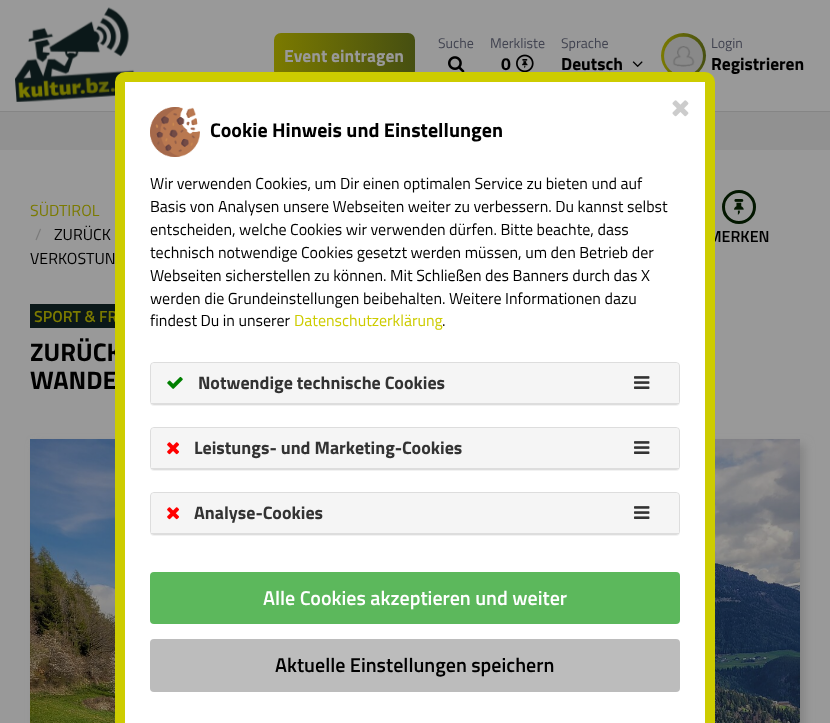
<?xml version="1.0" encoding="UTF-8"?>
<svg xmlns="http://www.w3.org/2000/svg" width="830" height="723">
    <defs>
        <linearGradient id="g1" gradientUnits="userSpaceOnUse" x1="274" y1="56" x2="415" y2="55"><stop offset="0" stop-color="#7B7A00"/><stop offset="1" stop-color="#464F11"/></linearGradient>
        <linearGradient id="g2" gradientUnits="userSpaceOnUse" x1="661" y1="56" x2="706" y2="56"><stop offset="0" stop-color="#7B7A00"/><stop offset="1" stop-color="#464F11"/></linearGradient>
        <filter id="blur1" x="-50%" y="-200%" width="200%" height="500%"><feGaussianBlur stdDeviation="5"/></filter>
        <filter id="blur2" x="-50%" y="-200%" width="200%" height="500%"><feGaussianBlur stdDeviation="0.5"/></filter>
    </defs>
    <rect width="100%" height="100%" fill="#999999"/>
    <rect x="0" y="111" width="830" height="1" fill="#858585"/>
    <image x="15" y="7" width="120" height="95" href="img_01.png"/>
    <rect x="274" y="33" width="141" height="45" rx="7" fill="url(#g1)"/>
    <text x="284" y="62" font-family="Titillium Web" font-size="17.5" font-weight="700" fill="#999999">Event eintragen</text>
    <text x="438" y="48" font-family="Titillium Web" font-size="14" fill="#414350">Suche</text>
    <image x="448" y="56" width="17" height="16" href="img_02.png"/>
    <text x="490" y="48" font-family="Titillium Web" font-size="14" fill="#414350">Merkliste</text>
    <text x="501" y="70" font-family="Titillium Web" font-size="17.5" font-weight="700" fill="#000000">0</text>
    <image x="516" y="54" width="18" height="18" href="img_03.png"/>
    <text x="561" y="48" font-family="Titillium Web" font-size="14" fill="#414350">Sprache</text>
    <text x="561" y="70" font-family="Titillium Web" font-size="17.5" font-weight="700" fill="#000000">Deutsch</text>
    <image x="632" y="61" width="11" height="6" href="img_04.png"/>
    <circle cx="683.5" cy="55.5" r="22.5" fill="url(#g2)"/>
    <image x="664" y="36" width="39" height="36" href="img_05.png"/>
    <text x="711" y="48" font-family="Titillium Web" font-size="14" fill="#414350">Login</text>
    <text x="711" y="70" font-family="Titillium Web" font-size="17.5" font-weight="700" fill="#000000">Registrieren</text>
    <rect x="0" y="112" width="830" height="38" fill="#919191"/>
    <rect x="35" y="444" width="770" height="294" fill="#858585" filter="url(#blur1)"/>
    <image x="30" y="439" width="770" height="284" href="img_12.png"/>
    <rect x="125" y="82" width="580" height="641" fill="#FFFFFF"/>
    <rect x="30" y="304" width="85" height="24" fill="#0B1819"/>
    <text x="34" y="322" font-family="Titillium Web" font-size="16" font-weight="600" fill="#7B7A00">SPORT &amp; FR</text>
    <text font-family="Titillium Web" font-size="25.5" font-weight="700" fill="#000000">
        <tspan x="30" y="361">ZURÜCK</tspan>
        <tspan x="30" y="389">WANDE</tspan>
    </text>
    <text x="708" y="242" font-family="Titillium Web" font-size="16" font-weight="600" fill="#000000">MERKEN</text>
    <rect x="120" y="77" width="590" height="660" rx="5" fill="none" stroke="#CDCC00" stroke-width="10"/>
    <image x="672" y="100" width="17" height="17" href="img_06.png"/>
    <image x="150" y="107" width="50" height="50" href="img_07.png"/>
    <text x="210" y="137" font-family="Titillium Web" font-size="20" font-weight="700" fill="#000000">Cookie Hinweis und Einstellungen</text>
    <text font-family="Titillium Web" font-size="16" fill="#000000">
        <tspan x="150" y="189">Wir verwenden Cookies, um Dir einen optimalen Service zu bieten und auf</tspan>
        <tspan x="150" y="212">Basis von Analysen unsere Webseiten weiter zu verbessern. Du kannst selbst</tspan>
        <tspan x="150" y="235">entscheiden, welche Cookies wir verwenden dürfen. Bitte beachte, dass</tspan>
        <tspan x="150" y="258">technisch notwendige Cookies gesetzt werden müssen, um den Betrieb der</tspan>
        <tspan x="150" y="281">Webseiten sicherstellen zu können. Mit Schließen des Banners durch das X</tspan>
        <tspan x="150" y="304">werden die Grundeinstellungen beibehalten. Weitere Informationen dazu</tspan>
        <tspan x="150" y="326">findest Du in unserer</tspan>
    </text>
    <text x="294" y="326" font-family="Titillium Web" font-size="16" fill="#CDCC00">Datenschutzerklärung</text>
    <text x="442" y="326" font-family="Titillium Web" font-size="16" fill="#000000">.</text>
    <rect x="150" y="363" width="530" height="43" rx="4" fill="#000000" fill-opacity="0.05" filter="url(#blur2)"/>
    <rect x="150.5" y="362.5" width="529" height="42" rx="3.5" fill="none" stroke="#DDDDDD"/>
    <path d="M 154 363 H 676 C 677.5 363 679 364.5 679 366 V 404 H 151 V 366 C 151 364.5 152.5 363 154 363 Z" fill="#F5F5F5"/>
    <rect x="151" y="403" width="528" height="1" fill="#DDDDDD"/>
    <image x="167" y="376" width="16" height="13" href="img_08.png"/>
    <text x="198" y="389" font-family="Titillium Web" font-size="18" font-weight="700" fill="#333333">Notwendige technische Cookies</text>
    <image x="634" y="376" width="16" height="13" href="img_09.png"/>
    <rect x="150" y="428" width="530" height="43" rx="4" fill="#000000" fill-opacity="0.05" filter="url(#blur2)"/>
    <rect x="150.5" y="427.5" width="529" height="42" rx="3.5" fill="none" stroke="#DDDDDD"/>
    <path d="M 154 428 H 676 C 677.5 428 679 429.5 679 431 V 469 H 151 V 431 C 151 429.5 152.5 428 154 428 Z" fill="#F5F5F5"/>
    <rect x="151" y="468" width="528" height="1" fill="#DDDDDD"/>
    <image x="167" y="442" width="12" height="13" href="img_10.png"/>
    <text x="194" y="454" font-family="Titillium Web" font-size="18" font-weight="700" fill="#333333">Leistungs- und Marketing-Cookies</text>
    <image x="634" y="441" width="16" height="13" href="img_09.png"/>
    <rect x="150" y="493" width="530" height="43" rx="4" fill="#000000" fill-opacity="0.05" filter="url(#blur2)"/>
    <rect x="150.5" y="492.5" width="529" height="42" rx="3.5" fill="none" stroke="#DDDDDD"/>
    <path d="M 154 493 H 676 C 677.5 493 679 494.5 679 496 V 534 H 151 V 496 C 151 494.5 152.5 493 154 493 Z" fill="#F5F5F5"/>
    <rect x="151" y="533" width="528" height="1" fill="#DDDDDD"/>
    <image x="167" y="507" width="12" height="13" href="img_10.png"/>
    <text x="194" y="519" font-family="Titillium Web" font-size="18" font-weight="700" fill="#333333">Analyse-Cookies</text>
    <image x="634" y="506" width="16" height="13" href="img_09.png"/>
    <rect x="150" y="572" width="530" height="52" rx="4" fill="#5CB85C"/>
    <text x="263" y="605" font-family="Titillium Web" font-size="20" font-weight="600" fill="#FFFFFF">Alle Cookies akzeptieren und weiter</text>
    <rect x="150" y="639" width="530" height="53" rx="4" fill="#BCBCBC"/>
    <text x="275" y="672" font-family="Titillium Web" font-size="20" font-weight="600" fill="#000000">Aktuelle Einstellungen speichern</text>
    <text x="30" y="216" font-family="Titillium Web" font-size="16" fill="#7B7A00">SÜDTIROL</text>
    <text x="35" y="240" font-family="Titillium Web" font-size="16" fill="#7A7A7A">/</text>
    <text x="54" y="240" font-family="Titillium Web" font-size="16" fill="#000000">ZURÜCK</text>
    <text x="30" y="264" font-family="Titillium Web" font-size="16" fill="#000000">VERKOSTUN</text>
    <circle cx="739" cy="207" r="15.5" fill="none" stroke="#031700" stroke-width="3"/>
    <image x="734" y="199" width="10" height="16" href="img_11.png"/>
</svg>
